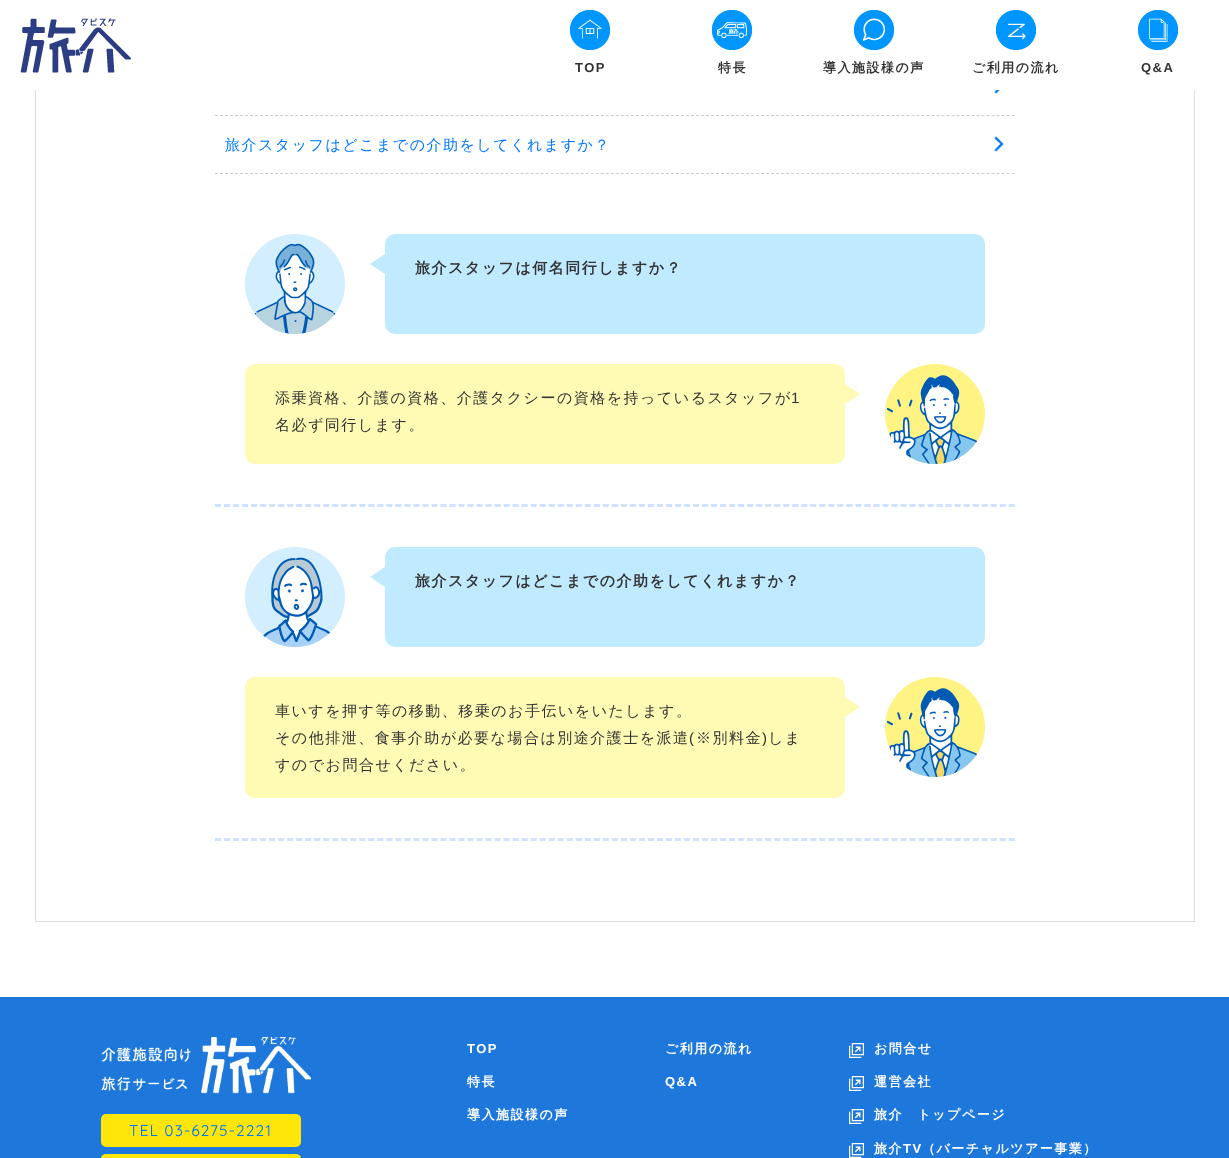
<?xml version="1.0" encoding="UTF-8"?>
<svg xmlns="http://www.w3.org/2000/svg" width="1229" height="1158">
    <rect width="100%" height="100%" fill="#FFFFFF"/>
    <rect x="35.5" y="-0.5" width="1159" height="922" fill="none" stroke="#DDDDDD"/>
    <rect x="35" y="0" width="1160" height="90" fill="#FFFFFF"/>
    <image x="20" y="18" width="111" height="55" href="img_01.png"/>
    <image x="570" y="10" width="40" height="40" href="img_02.png"/>
    <text x="575" y="72" font-family="Liberation Sans" font-size="13" font-weight="700" letter-spacing="1.5" fill="#333333">TOP</text>
    <image x="712" y="10" width="40" height="40" href="img_03.png"/>
    <text x="718" y="72" font-family="WenQuanYi Zen Hei" font-size="13" font-weight="700" letter-spacing="1.5" fill="#333333">特長</text>
    <image x="854" y="10" width="40" height="40" href="img_04.png"/>
    <text x="823" y="72" font-family="WenQuanYi Zen Hei" font-size="13" font-weight="700" letter-spacing="1.5" fill="#333333">導入施設様の声</text>
    <image x="996" y="10" width="40" height="40" href="img_05.png"/>
    <text x="972" y="72" font-family="WenQuanYi Zen Hei" font-size="13" font-weight="700" letter-spacing="1.5" fill="#333333">ご利用の流れ</text>
    <image x="1138" y="10" width="40" height="40" href="img_06.png"/>
    <text x="1141" y="72" font-family="Liberation Sans" font-size="13" font-weight="700" letter-spacing="1.5" fill="#333333">Q&amp;A</text>
    <path d="M 215 115.5 H 1015" fill="none" stroke="#CCCCCC" stroke-dasharray="3 2.01"/>
    <image x="994" y="90" width="6" height="4" href="img_07.png"/>
    <path d="M 215 173.5 H 1015" fill="none" stroke="#CCCCCC" stroke-dasharray="3 2.01"/>
    <text x="225" y="150" font-family="WenQuanYi Zen Hei" font-size="15" font-weight="500" letter-spacing="1.5" fill="#0077FF">旅介スタッフはどこまでの介助をしてくれますか？</text>
    <image x="994" y="136" width="10" height="16" href="img_08.png"/>
    <path d="M 215 505.5 H 1015" fill="none" stroke="#CFE2FF" stroke-width="3" stroke-dasharray="6 3.02"/>
    <circle cx="295" cy="284" r="50" fill="#D2EEFF"/>
    <image x="254" y="243" width="82" height="91" href="img_09.png"/>
    <rect x="385" y="234" width="600" height="100" rx="10" fill="#C0EAFF"/>
    <path d="M 385 254 V 274 L 370 264 Z" fill="#C0EAFF"/>
    <text x="415" y="273" font-family="WenQuanYi Zen Hei" font-size="15" font-weight="700" letter-spacing="1.5" fill="#333333">旅介スタッフは何名同行しますか？</text>
    <rect x="245" y="364" width="600" height="100" rx="10" fill="#FFFAB4"/>
    <text x="275" y="403" font-family="WenQuanYi Zen Hei" font-size="15" font-weight="500" letter-spacing="1.5" fill="#333333">添乗資格、介護の資格、介護タクシーの資格を持っているスタッフが</text>
    <text x="791" y="403" font-family="Liberation Sans" font-size="15" letter-spacing="1.5" fill="#333333">1</text>
    <text x="275" y="430" font-family="WenQuanYi Zen Hei" font-size="15" font-weight="500" letter-spacing="1.5" fill="#333333">名必ず同行します。</text>
    <path d="M 845 404 V 384 L 860 394 Z" fill="#FFFAB4"/>
    <circle cx="935" cy="414" r="50" fill="#FFF383"/>
    <image x="886" y="375" width="91" height="89" href="img_10.png"/>
    <path d="M 215 839.5 H 1015" fill="none" stroke="#CFE2FF" stroke-width="3" stroke-dasharray="6 3.02"/>
    <circle cx="295" cy="597" r="50" fill="#D2EEFF"/>
    <image x="263" y="557" width="68" height="90" href="img_11.png"/>
    <rect x="385" y="547" width="600" height="100" rx="10" fill="#C0EAFF"/>
    <path d="M 385 567 V 587 L 370 577 Z" fill="#C0EAFF"/>
    <text x="415" y="586" font-family="WenQuanYi Zen Hei" font-size="15" font-weight="700" letter-spacing="1.5" fill="#333333">旅介スタッフはどこまでの介助をしてくれますか？</text>
    <rect x="245" y="677" width="600" height="121" rx="10" fill="#FFFAB4"/>
    <text font-family="WenQuanYi Zen Hei" font-size="15" font-weight="500" letter-spacing="1.5" fill="#333333">
        <tspan x="275" y="716">車いすを押す等の移動、移乗のお手伝いをいたします。</tspan>
        <tspan x="275" y="743">その他排泄、食事介助が必要な場合は別途介護士を派遣</tspan>
    </text>
    <text x="689" y="743" font-family="Liberation Sans" font-size="15" letter-spacing="1.5" fill="#333333">(</text>
    <text x="696" y="743" font-family="WenQuanYi Zen Hei" font-size="15" font-weight="500" letter-spacing="1.5" fill="#333333">※別料金</text>
    <text x="762" y="743" font-family="Liberation Sans" font-size="15" letter-spacing="1.5" fill="#333333">)</text>
    <text x="768" y="743" font-family="WenQuanYi Zen Hei" font-size="15" font-weight="500" letter-spacing="1.5" fill="#333333">しま</text>
    <text x="275" y="770" font-family="WenQuanYi Zen Hei" font-size="15" font-weight="500" letter-spacing="1.5" fill="#333333">すのでお問合せください。</text>
    <path d="M 845 717 V 697 L 860 707 Z" fill="#FFFAB4"/>
    <circle cx="935" cy="727" r="50" fill="#FFF383"/>
    <image x="886" y="688" width="91" height="89" href="img_12.png"/>
    <rect x="0" y="997" width="1229" height="161" fill="#1E78DC"/>
    <text x="467" y="1053" font-family="Liberation Sans" font-size="13" font-weight="700" letter-spacing="1.5" fill="#FFFFFF">TOP</text>
    <text x="467" y="1086" font-family="WenQuanYi Zen Hei" font-size="13" font-weight="700" letter-spacing="1.5" fill="#FFFFFF">特長</text>
    <text x="467" y="1119" font-family="WenQuanYi Zen Hei" font-size="13" font-weight="700" letter-spacing="1.5" fill="#FFFFFF">導入施設様の声</text>
    <text x="665" y="1053" font-family="WenQuanYi Zen Hei" font-size="13" font-weight="700" letter-spacing="1.5" fill="#FFFFFF">ご利用の流れ</text>
    <text x="665" y="1086" font-family="Liberation Sans" font-size="13" font-weight="700" letter-spacing="1.5" fill="#FFFFFF">Q&amp;A</text>
    <image x="849" y="1043" width="15" height="15" href="img_13.png"/>
    <text x="874" y="1053" font-family="WenQuanYi Zen Hei" font-size="13" font-weight="700" letter-spacing="1.5" fill="#FFFFFF">お問合せ</text>
    <image x="849" y="1076" width="15" height="15" href="img_13.png"/>
    <text x="874" y="1086" font-family="WenQuanYi Zen Hei" font-size="13" font-weight="700" letter-spacing="1.5" fill="#FFFFFF">運営会社</text>
    <image x="849" y="1109" width="15" height="15" href="img_13.png"/>
    <text x="874" y="1119" font-family="WenQuanYi Zen Hei" font-size="13" font-weight="700" letter-spacing="1.5" fill="#FFFFFF">旅介　トップページ</text>
    <image x="849" y="1143" width="15" height="15" href="img_13.png"/>
    <text x="874" y="1153" font-family="WenQuanYi Zen Hei" font-size="13" font-weight="700" letter-spacing="1.5" fill="#FFFFFF">旅介</text>
    <text x="903" y="1153" font-family="Liberation Sans" font-size="13" font-weight="700" letter-spacing="1.5" fill="#FFFFFF">TV</text>
    <text x="922" y="1153" font-family="WenQuanYi Zen Hei" font-size="13" font-weight="700" letter-spacing="1.5" fill="#FFFFFF">（バーチャルツアー事業）</text>
    <image x="101" y="1037" width="210" height="57" href="img_14.png"/>
    <rect x="101" y="1114" width="200" height="33" rx="5" fill="#FFE60A"/>
    <text x="129" y="1136" font-family="Quicksand" font-size="15" font-weight="700" letter-spacing="1.5" fill="#0077FF">TEL 03-6275-2221</text>
    <rect x="101" y="1154" width="200" height="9" rx="5" fill="#FFE60A"/>
</svg>
